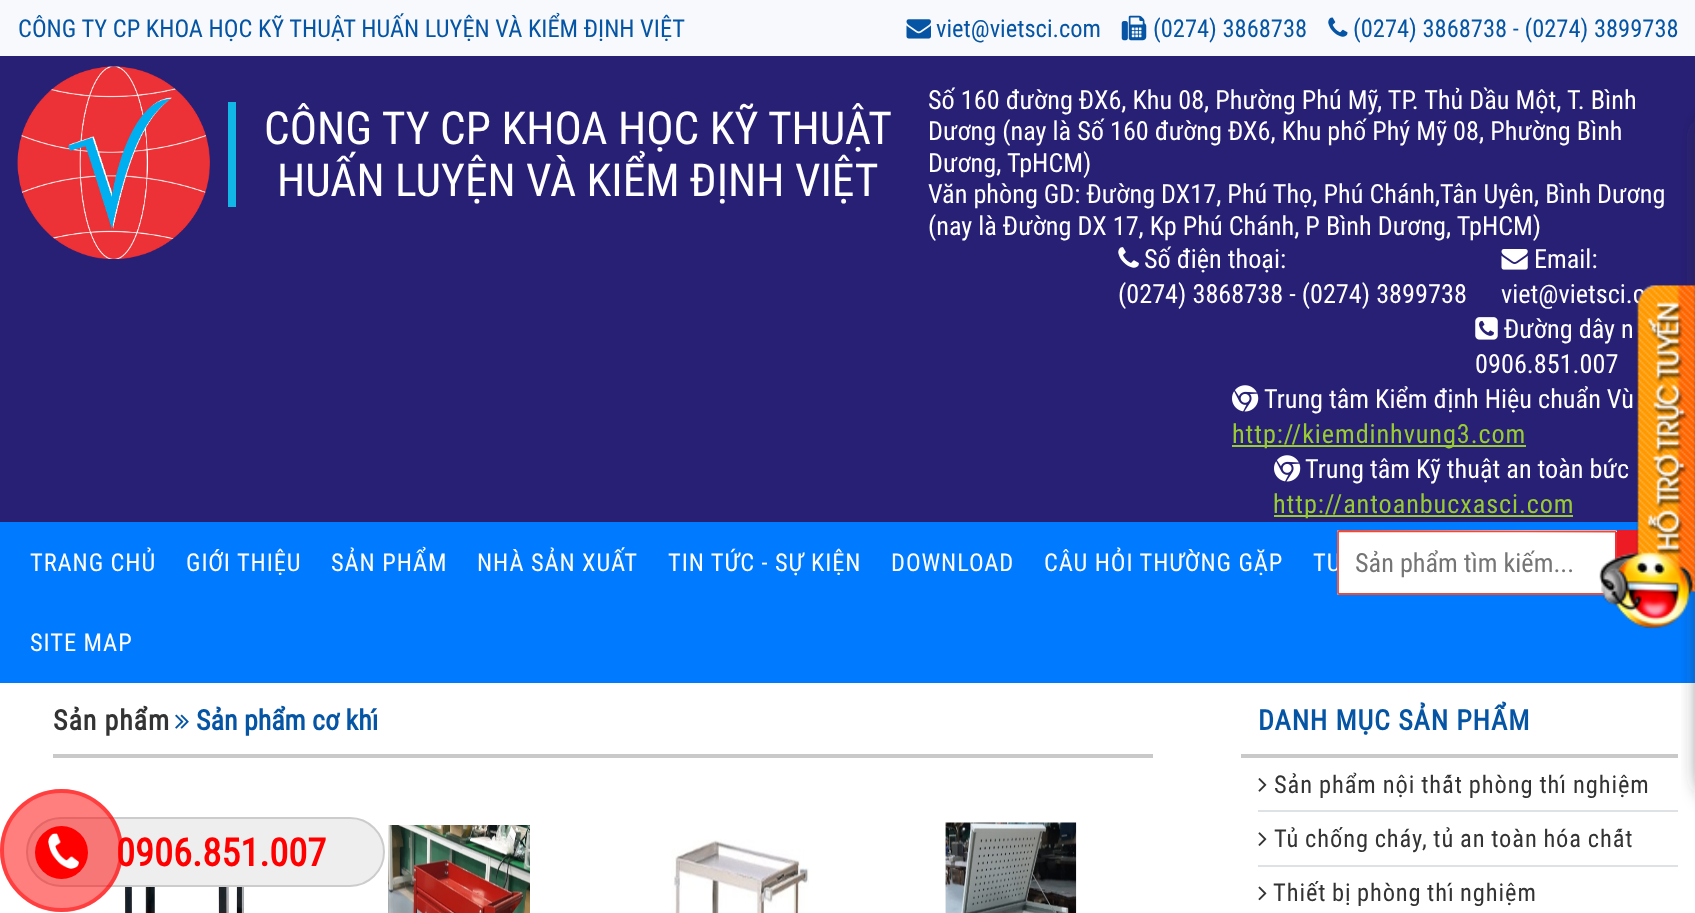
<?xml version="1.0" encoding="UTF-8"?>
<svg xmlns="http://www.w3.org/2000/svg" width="1695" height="913">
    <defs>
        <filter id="blur1" x="-50%" y="-200%" width="200%" height="500%"><feGaussianBlur stdDeviation="10.5"/></filter>
    </defs>
    <rect width="100%" height="100%" fill="#FFFFFF"/>
    <rect x="0" y="0" width="1695" height="56" fill="#F7F9FC"/>
    <text x="18" y="37" font-family="Roboto Condensed" font-size="24.5" fill="#0655A4">CÔNG TY CP KHOA HỌC KỸ THUẬT HUẤN LUYỆN VÀ KIỂM ĐỊNH VIỆT</text>
    <image x="906" y="19" width="25" height="20" href="img_01.png"/>
    <text x="936" y="37" font-family="Roboto Condensed" font-size="24.5" fill="#0655A4">viet@vietsci.com</text>
    <image x="1121" y="15" width="26" height="26" href="img_02.png"/>
    <text x="1153" y="37" font-family="Roboto Condensed" font-size="24.5" fill="#0655A4">(0274) 3868738</text>
    <image x="1328" y="17" width="20" height="20" href="img_03.png"/>
    <text x="1353" y="37" font-family="Roboto Condensed" font-size="24.5" fill="#0655A4">(0274) 3868738 - (0274) 3899738</text>
    <rect x="0" y="56" width="1695" height="466" fill="#282075"/>
    <rect x="0" y="522" width="1695" height="161" fill="#007AFF"/>
    <rect x="1241" y="754" width="437" height="4" fill="#C9C9C9"/>
    <rect x="1258" y="810" width="420" height="2" fill="#DFE2E5"/>
    <rect x="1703" y="117" width="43" height="679" rx="19" fill="#333333" filter="url(#blur1)"/>
    <text x="1501" y="303" font-family="Roboto Condensed" font-size="26.25" fill="#FFFFFF">viet@vietsci.c</text>
    <text x="1504" y="338" font-family="Roboto Condensed" font-size="26.25" fill="#FFFFFF">Đường dây n</text>
    <text x="1475" y="373" font-family="Roboto Condensed" font-size="26.25" fill="#FFFFFF">0906.851.007</text>
    <text x="1264" y="408" font-family="Roboto Condensed" font-size="26.25" fill="#FFFFFF">Trung tâm Kiểm định Hiệu chuẩn Vù</text>
    <text x="1305" y="478" font-family="Roboto Condensed" font-size="26.25" fill="#FFFFFF">Trung tâm Kỹ thuật an toàn bức</text>
    <rect x="1617" y="530" width="22" height="31" fill="#ED1C24"/>
    <rect x="1337" y="530" width="280" height="65" rx="2" fill="#FFFFFF"/>
    <rect x="1615" y="532" width="2" height="29" fill="#ED1C24" fill-opacity="0.9"/>
    <text x="1313" y="571" font-family="Roboto Condensed" font-size="24.5" letter-spacing="0.9" fill="#FFFFFF">TU</text>
    <path d="M 1616 594 H 1339 L 1338 593 V 532 L 1339 531 L 1616 531.5" fill="none" stroke="#E74C3C" stroke-width="1.8"/>
    <image x="1599" y="285" width="96" height="344" href="img_04.png"/>
    <image x="17" y="66" width="193" height="193" href="img_05.png"/>
    <rect x="228" y="102" width="8" height="105" fill="#11B5E6"/>
    <text x="264" y="144" font-family="Roboto Condensed" font-size="45.5" fill="#FFFFFF">CÔNG TY CP KHOA HỌC KỸ THUẬT</text>
    <text x="277" y="196" font-family="Roboto Condensed" font-size="45.5" fill="#FFFFFF">HUẤN LUYỆN VÀ KIỂM ĐỊNH VIỆT</text>
    <text font-family="Roboto Condensed" font-size="26.25" fill="#FFFFFF">
        <tspan x="928" y="109">Số 160 đường ĐX6, Khu 08, Phường Phú Mỹ, TP. Thủ Dầu Một, T. Bình</tspan>
        <tspan x="928" y="140">Dương (nay là Số 160 đường ĐX6, Khu phố Phý Mỹ 08, Phường Bình</tspan>
        <tspan x="928" y="172">Dương, TpHCM)</tspan>
        <tspan x="928" y="203">Văn phòng GD: Đường DX17, Phú Thọ, Phú Chánh,Tân Uyên, Bình Dương</tspan>
        <tspan x="928" y="235">(nay là Đường DX 17, Kp Phú Chánh, P Bình Dương, TpHCM)</tspan>
    </text>
    <image x="1118" y="247" width="21" height="21" href="img_06.png"/>
    <text x="1144" y="268" font-family="Roboto Condensed" font-size="26.25" fill="#FFFFFF">Số điện thoại:</text>
    <text x="1118" y="303" font-family="Roboto Condensed" font-size="26.25" fill="#FFFFFF">(0274) 3868738 - (0274) 3899738</text>
    <image x="1501" y="249" width="27" height="21" href="img_07.png"/>
    <text x="1534" y="268" font-family="Roboto Condensed" font-size="26.25" fill="#FFFFFF">Email:</text>
    <image x="1475" y="317" width="23" height="23" href="img_08.png"/>
    <image x="1232" y="385" width="27" height="27" href="img_09.png"/>
    <rect x="1232" y="445" width="294" height="2" fill="#99CC33"/>
    <text x="1232" y="443" font-family="Roboto Condensed" font-size="26.25" letter-spacing="0.9" fill="#99CC33">http://kiemdinhvung3.com</text>
    <image x="1274" y="455" width="27" height="27" href="img_10.png"/>
    <rect x="1274" y="515" width="299" height="2" fill="#99CC33"/>
    <text x="1273" y="513" font-family="Roboto Condensed" font-size="26.25" letter-spacing="0.9" fill="#99CC33">http://antoanbucxasci.com</text>
    <text x="30" y="571" font-family="Roboto Condensed" font-size="24.5" letter-spacing="0.9" fill="#FFFFFF">TRANG CHỦ</text>
    <text x="186" y="571" font-family="Roboto Condensed" font-size="24.5" letter-spacing="0.9" fill="#FFFFFF">GIỚI THIỆU</text>
    <text x="331" y="571" font-family="Roboto Condensed" font-size="24.5" letter-spacing="0.9" fill="#FFFFFF">SẢN PHẨM</text>
    <text x="477" y="571" font-family="Roboto Condensed" font-size="24.5" letter-spacing="0.9" fill="#FFFFFF">NHÀ SẢN XUẤT</text>
    <text x="668" y="571" font-family="Roboto Condensed" font-size="24.5" letter-spacing="0.9" fill="#FFFFFF">TIN TỨC - SỰ KIỆN</text>
    <text x="891" y="571" font-family="Roboto Condensed" font-size="24.5" letter-spacing="0.9" fill="#FFFFFF">DOWNLOAD</text>
    <text x="1044" y="571" font-family="Roboto Condensed" font-size="24.5" letter-spacing="0.9" fill="#FFFFFF">CÂU HỎI THƯỜNG GẶP</text>
    <text x="30" y="651" font-family="Roboto Condensed" font-size="24.5" letter-spacing="0.9" fill="#FFFFFF">SITE MAP</text>
    <text x="1355" y="572" font-family="Roboto Condensed" font-size="26.25" fill="#757575">Sản phẩm tìm kiếm...</text>
    <rect x="53" y="754" width="1100" height="4" fill="#C9C9C9"/>
    <text x="53" y="730" font-family="Roboto Condensed" font-size="28" font-weight="700" letter-spacing="0.9" fill="#333333">Sản phẩm</text>
    <image x="175" y="714" width="14" height="15" href="img_11.png"/>
    <text x="196" y="730" font-family="Roboto Condensed" font-size="28" font-weight="700" fill="#0655A4">Sản phẩm cơ khí</text>
    <image x="124" y="887" width="132" height="26" href="img_12.png"/>
    <image x="388" y="825" width="142" height="88" href="img_13.png"/>
    <image x="671" y="839" width="138" height="74" href="img_14.png"/>
    <image x="945" y="822" width="132" height="91" href="img_15.png"/>
    <text x="1258" y="730" font-family="Roboto Condensed" font-size="28" font-weight="700" letter-spacing="0.9" fill="#0655A4">DANH MỤC SẢN PHẨM</text>
    <image x="1258" y="778" width="9" height="14" href="img_16.png"/>
    <text x="1274" y="793" word-spacing="-0.5" font-family="Roboto Condensed" font-size="24.5" letter-spacing="0.9" fill="#333333">Sản phẩm nội thất phòng thí nghiệm</text>
    <rect x="1258" y="865" width="420" height="2" fill="#DFE2E5"/>
    <image x="1258" y="832" width="9" height="14" href="img_17.png"/>
    <text x="1274" y="847" word-spacing="-0.75" font-family="Roboto Condensed" font-size="24.5" letter-spacing="0.9" fill="#333333">Tủ chống cháy, tủ an toàn hóa chất</text>
    <image x="1258" y="886" width="9" height="15" href="img_18.png"/>
    <text x="1273" y="901" word-spacing="-1" font-family="Roboto Condensed" font-size="24.5" letter-spacing="0.9" fill="#333333">Thiết bị phòng thí nghiệm</text>
    <rect x="27" y="818" width="357" height="68" rx="34" fill="#EEEEEE" stroke="#CCCCCC" stroke-width="2"/>
    <text x="116" y="866" font-family="Roboto Condensed" font-size="38.5" font-weight="700" fill="#FF0000">0906.851.007</text>
    <circle cx="61.5" cy="850.5" r="61.5" fill="#FF0000" fill-opacity="0.5"/>
    <circle cx="61.5" cy="850.5" r="59.5" fill="none" stroke="#FF0000" stroke-opacity="0.5" stroke-width="4"/>
    <circle cx="61.5" cy="852.5" r="26.5" fill="#FF0000"/>
    <image x="48" y="833" width="31" height="36" href="img_19.png"/>
</svg>
